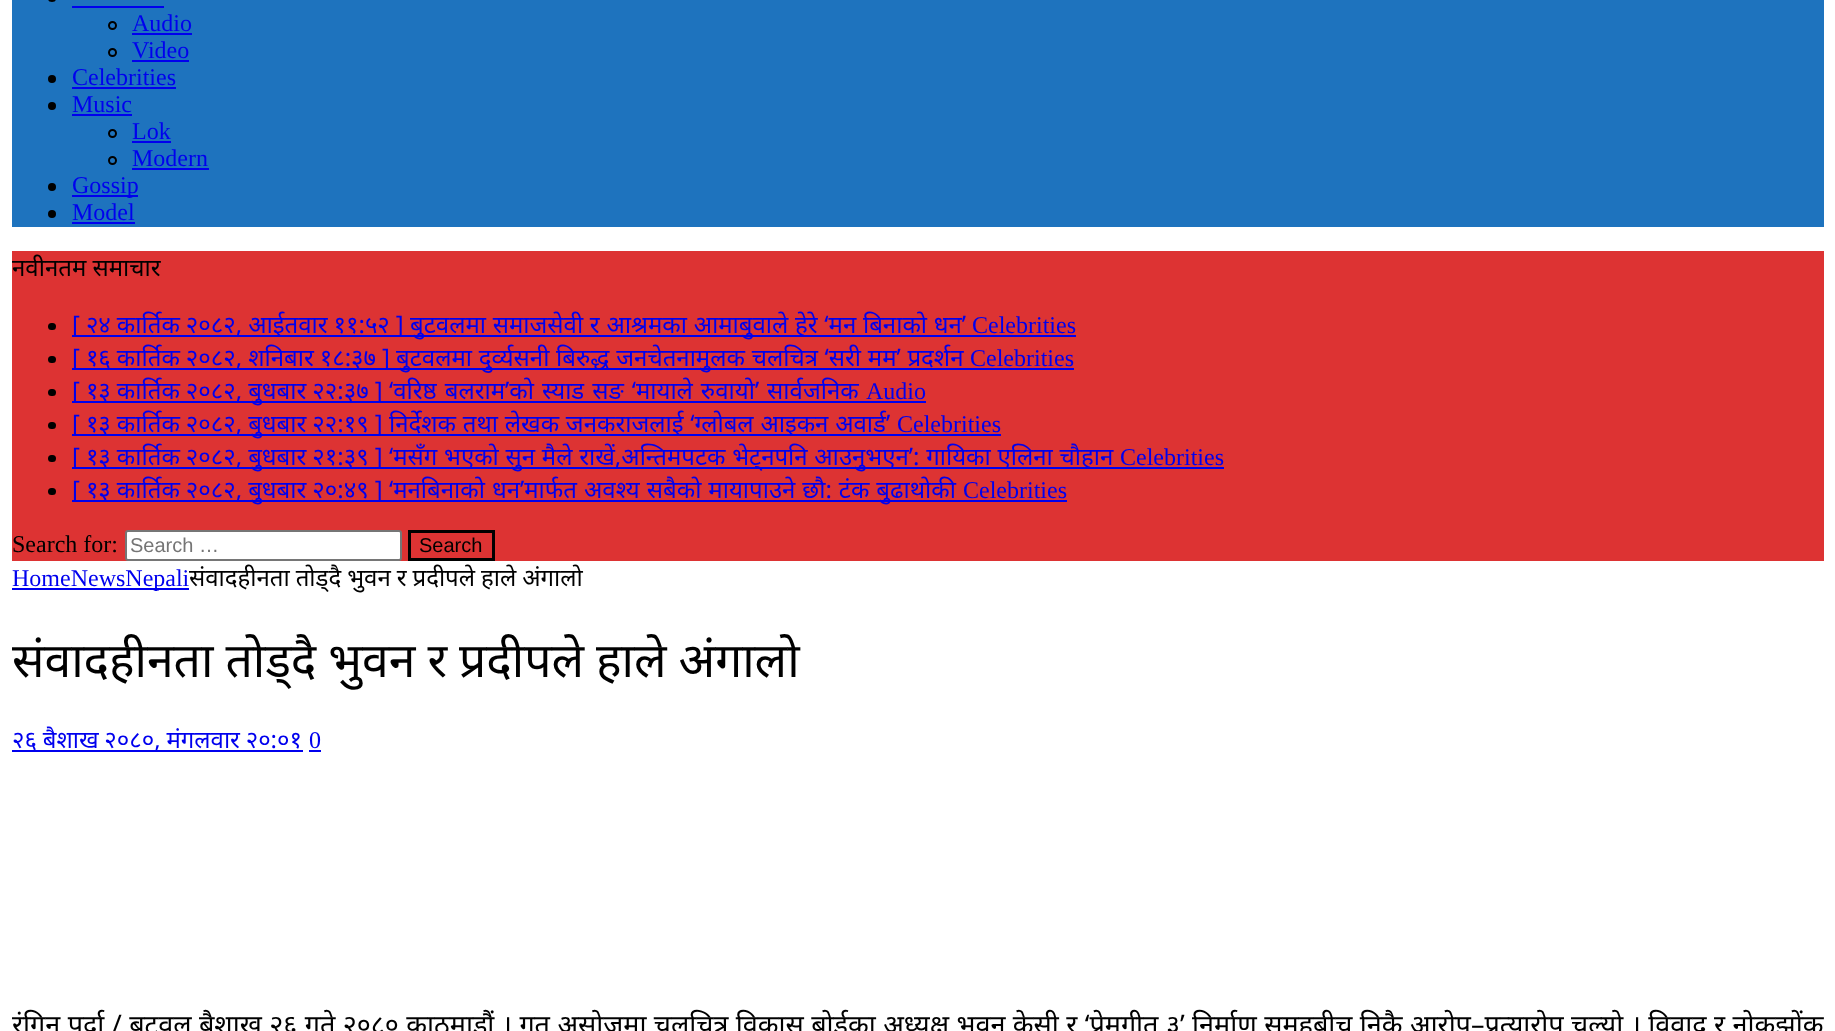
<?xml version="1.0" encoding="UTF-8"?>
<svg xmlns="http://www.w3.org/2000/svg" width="1835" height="1031">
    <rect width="100%" height="100%" fill="#FFFFFF"/>
    <rect x="12" y="0" width="1812" height="227" fill="#1E73BE"/>
    <rect x="48" y="-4" width="8" height="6" rx="4" fill="#000000"/>
    <rect x="72" y="6" width="92" height="2" fill="#0000EE"/>
    <circle cx="112.5" cy="25.5" r="3.5" fill="none" stroke="#000000" stroke-width="2"/>
    <text x="132" y="31" font-family="Liberation Serif" font-size="24" fill="#0000EE">Audio</text>
    <rect x="132" y="33" width="60" height="2" fill="#0000EE"/>
    <circle cx="112.5" cy="52.5" r="3.5" fill="none" stroke="#000000" stroke-width="2"/>
    <text x="132" y="58" font-family="Liberation Serif" font-size="24" fill="#0000EE">Video</text>
    <rect x="132" y="60" width="57" height="2" fill="#0000EE"/>
    <circle cx="52" cy="79" r="4" fill="#000000"/>
    <text x="72" y="85" font-family="Liberation Serif" font-size="24" fill="#0000EE">Celebrities</text>
    <rect x="72" y="87" width="104" height="2" fill="#0000EE"/>
    <circle cx="52" cy="106" r="4" fill="#000000"/>
    <text x="72" y="112" font-family="Liberation Serif" font-size="24" fill="#0000EE">Music</text>
    <rect x="72" y="114" width="60" height="2" fill="#0000EE"/>
    <circle cx="112.5" cy="133.5" r="3.5" fill="none" stroke="#000000" stroke-width="2"/>
    <text x="132" y="139" font-family="Liberation Serif" font-size="24" fill="#0000EE">Lok</text>
    <rect x="132" y="141" width="39" height="2" fill="#0000EE"/>
    <circle cx="112.5" cy="160.5" r="3.5" fill="none" stroke="#000000" stroke-width="2"/>
    <text x="132" y="166" font-family="Liberation Serif" font-size="24" fill="#0000EE">Modern</text>
    <rect x="132" y="168" width="77" height="2" fill="#0000EE"/>
    <circle cx="52" cy="187" r="4" fill="#000000"/>
    <rect x="72" y="195" width="66" height="2" fill="#0000EE"/>
    <text x="72" y="193" font-family="Liberation Serif" font-size="24" fill="#0000EE">Gossip</text>
    <circle cx="52" cy="214" r="4" fill="#000000"/>
    <text x="72" y="220" font-family="Liberation Serif" font-size="24" fill="#0000EE">Model</text>
    <rect x="72" y="222" width="63" height="2" fill="#0000EE"/>
    <rect x="12" y="251" width="1812" height="310" fill="#DD3333"/>
    <text x="12" y="276" font-family="Noto Sans" font-size="24" fill="#000000">नवीनतम समाचार</text>
    <rect x="48" y="323" width="8" height="7" rx="3.5" fill="#000000"/>
    <rect x="72" y="335" width="1004" height="2" fill="#0000EE"/>
    <text x="72" y="333" word-spacing="-0.25" font-family="Noto Sans" font-size="24" fill="#0000EE">[ २४ कार्तिक २०८२, आईतवार ११:५२ ]</text>
    <text x="410" y="333" word-spacing="0.5" font-family="Noto Sans" font-size="24" fill="#0000EE">बुटवलमा समाजसेवी र आश्रमका आमाबुवाले हेरे ‘मन बिनाको धन’</text>
    <text x="972" y="333" font-family="Liberation Serif" font-size="24" fill="#0000EE">Celebrities</text>
    <rect x="48" y="356" width="8" height="7" rx="3.5" fill="#000000"/>
    <rect x="72" y="368" width="1002" height="2" fill="#0000EE"/>
    <text x="72" y="366" word-spacing="-0.25" font-family="Noto Sans" font-size="24" fill="#0000EE">[ १६ कार्तिक २०८२, शनिबार १८:३७ ]</text>
    <text x="396" y="366" word-spacing="0.5" font-family="Noto Sans" font-size="24" fill="#0000EE">बुटवलमा दुर्व्यसनी बिरुद्ध जनचेतनामुलक चलचित्र ‘सरी मम’ प्रदर्शन</text>
    <text x="970" y="366" font-family="Liberation Serif" font-size="24" fill="#0000EE">Celebrities</text>
    <rect x="48" y="389" width="8" height="7" rx="3.5" fill="#000000"/>
    <rect x="72" y="401" width="854" height="2" fill="#0000EE"/>
    <text x="72" y="399" word-spacing="-0.25" font-family="Noto Sans" font-size="24" fill="#0000EE">[ १३ कार्तिक २०८२, बुधबार २२:३७ ]</text>
    <text x="389" y="399" word-spacing="1.75" font-family="Noto Sans" font-size="24" fill="#0000EE">‘वरिष्ठ बलराम’को स्याड सङ ‘मायाले रुवायो’ सार्वजनिक</text>
    <text x="866" y="399" font-family="Liberation Serif" font-size="24" fill="#0000EE">Audio</text>
    <rect x="48" y="422" width="8" height="7" rx="3.5" fill="#000000"/>
    <rect x="72" y="434" width="929" height="2" fill="#0000EE"/>
    <text x="72" y="432" word-spacing="-0.25" font-family="Noto Sans" font-size="24" fill="#0000EE">[ १३ कार्तिक २०८२, बुधबार २२:१९ ]</text>
    <text x="389" y="432" word-spacing="0.5" font-family="Noto Sans" font-size="24" fill="#0000EE">निर्देशक तथा लेखक जनकराजलाई ‘ग्लोबल आइकन अवार्ड’</text>
    <text x="897" y="432" font-family="Liberation Serif" font-size="24" fill="#0000EE">Celebrities</text>
    <rect x="48" y="455" width="8" height="7" rx="3.5" fill="#000000"/>
    <rect x="72" y="467" width="1152" height="2" fill="#0000EE"/>
    <text x="72" y="465" word-spacing="-0.25" font-family="Noto Sans" font-size="24" fill="#0000EE">[ १३ कार्तिक २०८२, बुधबार २१:३९ ]</text>
    <text x="389" y="465" word-spacing="0.5" font-family="Noto Sans" font-size="24" fill="#0000EE">‘मसँग भएको सुन मैले राखें,अन्तिमपटक भेट्नपनि आउनुभएन’: गायिका एलिना चौहान</text>
    <text x="1120" y="465" font-family="Liberation Serif" font-size="24" fill="#0000EE">Celebrities</text>
    <rect x="48" y="488" width="8" height="7" rx="3.5" fill="#000000"/>
    <rect x="72" y="500" width="995" height="2" fill="#0000EE"/>
    <text x="72" y="498" word-spacing="-0.25" font-family="Noto Sans" font-size="24" fill="#0000EE">[ १३ कार्तिक २०८२, बुधबार २०:४९ ]</text>
    <text x="389" y="498" word-spacing="0.75" font-family="Noto Sans" font-size="24" fill="#0000EE">‘मनबिनाको धन’मार्फत अवश्य सबैको मायापाउने छौ: टंक बुढाथोकी</text>
    <text x="963" y="498" font-family="Liberation Serif" font-size="24" fill="#0000EE">Celebrities</text>
    <text x="12" y="552" font-family="Liberation Serif" font-size="24" fill="#000000">Search for:</text>
    <rect x="126" y="531" width="275" height="29" rx="2" fill="#FFFFFF" stroke="#767676" stroke-width="2"/>
    <text x="130" y="552" font-family="Liberation Sans" font-size="20" fill="#757575">Search …</text>
    <rect x="409.5" y="531.5" width="84" height="28" fill="none" stroke="#000000" stroke-width="3"/>
    <text x="419" y="552" font-family="Liberation Sans" font-size="20" fill="#000000">Search</text>
    <rect x="12" y="588" width="177" height="2" fill="#0000EE"/>
    <text x="12" y="586" font-family="Liberation Serif" font-size="24" fill="#0000EE">HomeNewsNepali</text>
    <text x="189" y="586" word-spacing="-0.25" font-family="Noto Sans" font-size="24" fill="#000000">संवादहीनता तोड्दै भुवन र प्रदीपले हाले अंगालो</text>
    <text x="12" y="677" word-spacing="-0.5" font-family="Noto Sans" font-size="48" fill="#000000">संवादहीनता तोड्दै भुवन र प्रदीपले हाले अंगालो</text>
    <rect x="12" y="750" width="291" height="2" fill="#0000EE"/>
    <text x="12" y="748" word-spacing="-0.5" font-family="Noto Sans" font-size="24" fill="#0000EE">२६ बैशाख २०८०, मंगलवार २०:०१</text>
    <text x="309" y="748" font-family="Liberation Serif" font-size="24" fill="#0000EE">0</text>
    <rect x="309" y="750" width="12" height="2" fill="#0000EE"/>
    <text x="12" y="1034" word-spacing="0.4" font-family="Noto Sans" font-size="27" fill="#000000">रंगिन पर्दा / बुटवल बैशाख २६ गते २०८० काठमाडौं । गत असोजमा चलचित्र विकास बोर्डका अध्यक्ष भुवन केसी र ‘प्रेमगीत ३’ निर्माण समूहबीच निकै आरोप–प्रत्यारोप चल्यो । विवाद र नोकझोंक</text>
</svg>
